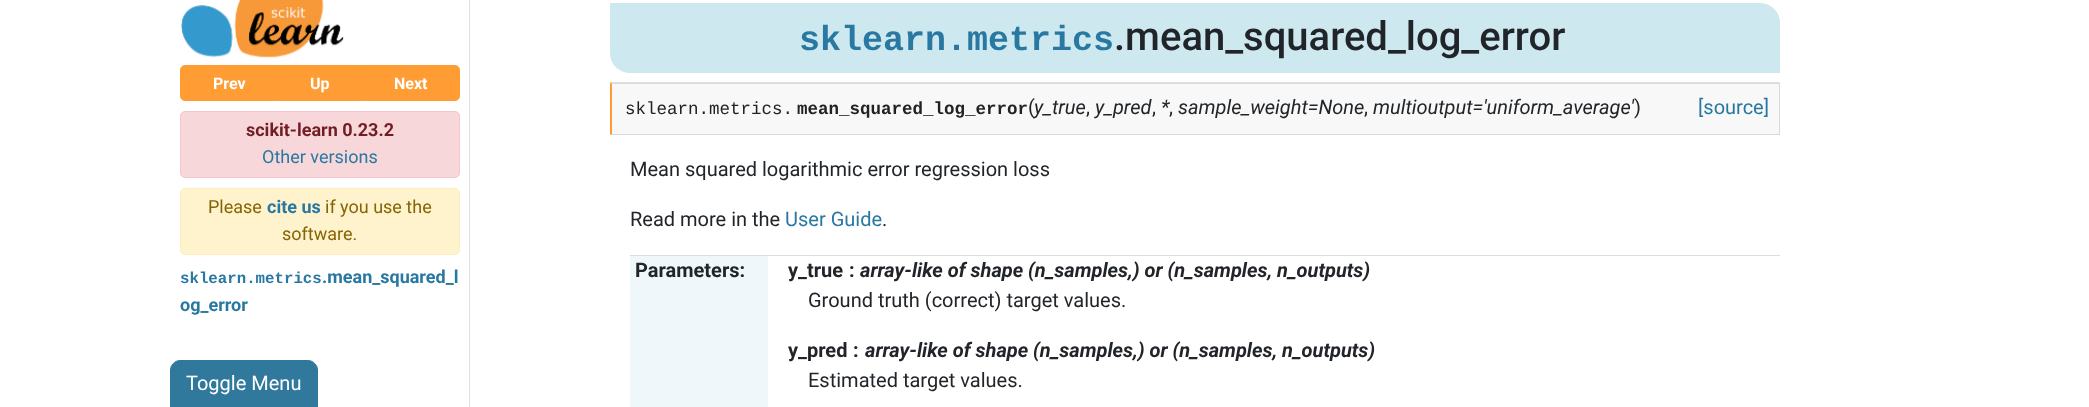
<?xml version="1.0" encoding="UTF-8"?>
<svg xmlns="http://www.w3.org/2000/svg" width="2089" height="407">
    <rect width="100%" height="100%" fill="#FFFFFF"/>
    <rect x="469" y="0" width="1" height="407" fill="#DEE2E6"/>
    <image x="181" y="0" width="163" height="58" href="img_01.png"/>
    <path d="M 185 65.5 H 278.5 V 100.5 H 185 C 182.5 100.5 180.5 98.5 180.5 96 V 70 C 180.5 67.5 182.5 65.5 185 65.5 Z" fill="#FF9C34" stroke="#FF9C34"/>
    <text x="213" y="89" font-family="Roboto" font-size="16" font-weight="700" fill="#FFFFFF">Prev</text>
    <rect x="279" y="65" width="82" height="36" fill="#FF9C34"/>
    <text x="310" y="89" font-family="Roboto" font-size="16" font-weight="700" fill="#FFFFFF">Up</text>
    <path d="M 361.5 65.5 H 455 C 457.5 65.5 459.5 67.5 459.5 70 V 96 C 459.5 98.5 457.5 100.5 455 100.5 H 361.5 Z" fill="#FF9C34" stroke="#FF9C34"/>
    <text x="394" y="89" font-family="Roboto" font-size="16" font-weight="700" fill="#FFFFFF">Next</text>
    <rect x="180.5" y="111.5" width="279" height="66" rx="4.5" fill="#F8D7DA" stroke="#F5C6CB"/>
    <text x="246" y="136" font-family="Roboto" font-size="18" font-weight="700" fill="#721C24">scikit-learn 0.23.2</text>
    <text x="262" y="163" font-family="Roboto" font-size="18" fill="#2878A2">Other versions</text>
    <rect x="180.5" y="188.5" width="279" height="66" rx="4.5" fill="#FFF3CD" stroke="#FFEEBA"/>
    <text x="208" y="213" font-family="Roboto" font-size="18" fill="#856404">Please</text>
    <text x="267" y="213" font-family="Roboto" font-size="18" font-weight="700" fill="#2878A2">cite us</text>
    <text x="325" y="213" font-family="Roboto" font-size="18" fill="#856404">if you use the</text>
    <text x="282" y="240" font-family="Roboto" font-size="18" fill="#856404">software.</text>
    <text x="180" y="283" font-family="Liberation Mono" font-size="15.75" font-weight="700" fill="#2878A2">sklearn.metrics</text>
    <text x="322" y="283" font-family="Roboto" font-size="18" font-weight="700" fill="#2878A2">.mean_squared_l</text>
    <text x="180" y="311" font-family="Roboto" font-size="18" font-weight="700" fill="#2878A2">og_error</text>
    <path d="M 610 3 H 1760 C 1771 3 1780 12 1780 23 V 73 H 630 C 619 73 610 64 610 53 Z" fill="#CDE8EF"/>
    <text x="799" y="50" font-family="Liberation Mono" font-size="35" font-weight="700" fill="#2878A2">sklearn.metrics</text>
    <text x="1114" y="50" font-family="Roboto" font-size="40" font-weight="500" fill="#212529">.mean_squared_log_error</text>
    <rect x="610" y="83" width="1170" height="52" fill="#F8F8F8"/>
    <path d="M 610 82 H 1780 L 1779 84 H 612 Z" fill="#000000" fill-opacity="0.12"/>
    <path d="M 1780 82 V 135 L 1779 134 V 84 Z" fill="#000000" fill-opacity="0.12"/>
    <path d="M 1780 135 H 610 L 612 134 H 1779 Z" fill="#000000" fill-opacity="0.12"/>
    <path d="M 610 135 V 82 L 612 84 V 134 Z" fill="#FF9C34"/>
    <text x="625" y="114" font-family="Liberation Mono" font-size="17.5" fill="#222222">sklearn.metrics.</text>
    <text x="797" y="114" font-family="Liberation Mono" font-size="17.5" font-weight="700" fill="#222222">mean_squared_log_error</text>
    <text x="1028" y="114" font-family="Roboto" font-size="20" fill="#212529">(</text>
    <text x="1034" y="114" font-family="Roboto" font-size="20" font-style="italic" fill="#212529">y_true</text>
    <text x="1086" y="114" font-family="Roboto" font-size="20" fill="#212529">,</text>
    <text x="1095" y="114" font-family="Roboto" font-size="20" font-style="italic" fill="#212529">y_pred</text>
    <text x="1152" y="114" font-family="Roboto" font-size="20" fill="#212529">,</text>
    <text x="1161" y="114" font-family="Roboto" font-size="20" font-style="italic" fill="#212529">*</text>
    <text x="1169" y="114" font-family="Roboto" font-size="20" fill="#212529">,</text>
    <text x="1178" y="114" font-family="Roboto" font-size="20" font-style="italic" fill="#212529">sample_weight=None</text>
    <text x="1364" y="114" font-family="Roboto" font-size="20" fill="#212529">,</text>
    <text x="1373" y="114" font-family="Roboto" font-size="20" font-style="italic" fill="#212529">multioutput='uniform_average'</text>
    <text x="1634" y="114" font-family="Roboto" font-size="20" fill="#212529">)</text>
    <text x="1698" y="114" font-family="Roboto" font-size="20" fill="#2878A2">[source]</text>
    <text x="630" y="176" font-family="Roboto" font-size="20" fill="#212529">Mean squared logarithmic error regression loss</text>
    <text x="630" y="226" font-family="Roboto" font-size="20" fill="#212529">Read more in the</text>
    <text x="785" y="226" font-family="Roboto" font-size="20" fill="#2878A2">User Guide</text>
    <text x="882" y="226" font-family="Roboto" font-size="20" fill="#212529">.</text>
    <rect x="630" y="256" width="138" height="151" fill="#F0F7FA"/>
    <rect x="630" y="255" width="1150" height="1" fill="#DDDDDD"/>
    <text x="635" y="277" font-family="Roboto" font-size="20" font-weight="700" fill="#212529">Parameters:</text>
    <text x="788" y="277" font-family="Roboto" font-size="20" font-weight="700" fill="#212529">y_true</text>
    <text x="849" y="277" font-family="Roboto" font-size="20" font-weight="700" fill="#212529">:</text>
    <text x="860" y="277" font-family="Roboto" font-size="20" font-weight="700" font-style="italic" fill="#212529">array-like of shape (n_samples,) or (n_samples, n_outputs)</text>
    <text x="808" y="307" font-family="Roboto" font-size="20" fill="#212529">Ground truth (correct) target values.</text>
    <text x="788" y="357" font-family="Roboto" font-size="20" font-weight="700" fill="#212529">y_pred</text>
    <text x="853" y="357" font-family="Roboto" font-size="20" font-weight="700" fill="#212529">:</text>
    <text x="865" y="357" font-family="Roboto" font-size="20" font-weight="700" font-style="italic" fill="#212529">array-like of shape (n_samples,) or (n_samples, n_outputs)</text>
    <text x="808" y="387" font-family="Roboto" font-size="20" fill="#212529">Estimated target values.</text>
    <path d="M 180 360.5 H 308 C 313 360.5 317.5 365 317.5 370 V 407.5 H 170.5 V 370 C 170.5 365 175 360.5 180 360.5 Z" fill="#30799C" stroke="#30799C"/>
    <text x="186" y="390" font-family="Roboto" font-size="20" fill="#FFFFFF">Toggle Menu</text>
</svg>
